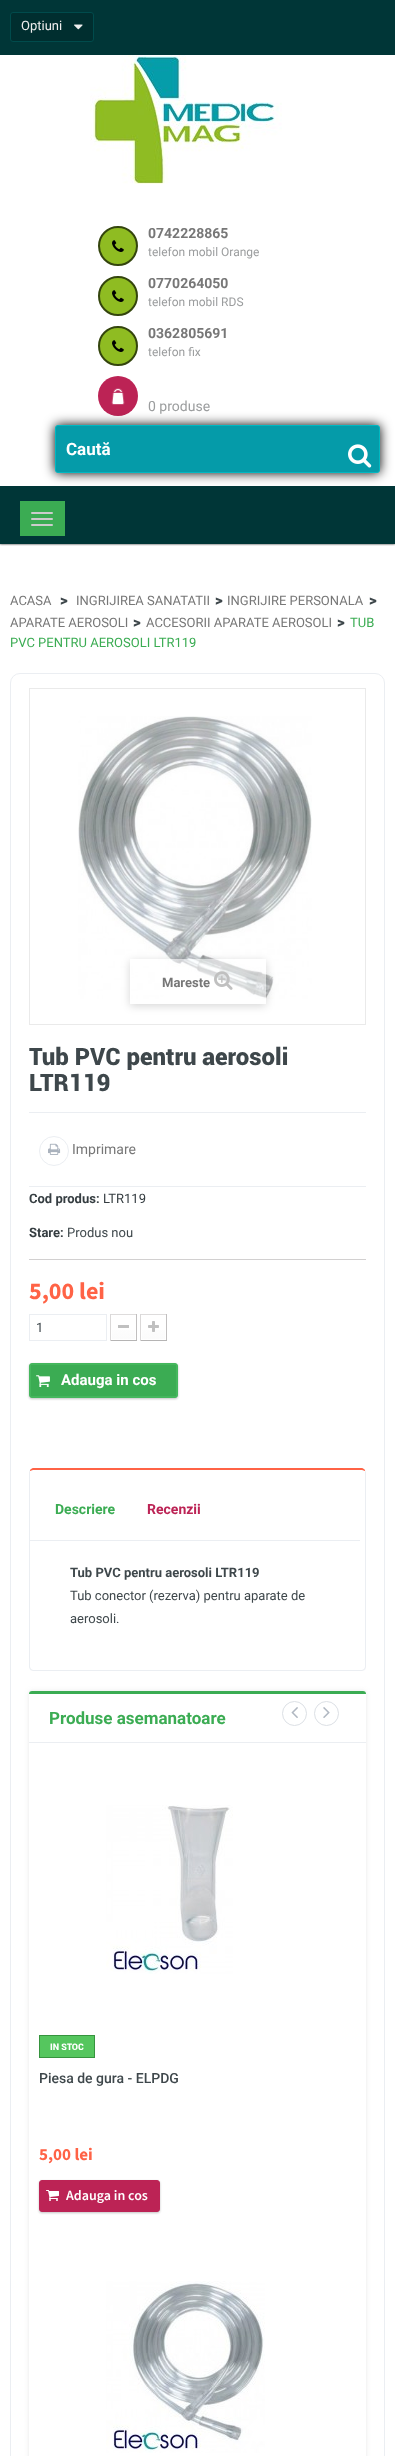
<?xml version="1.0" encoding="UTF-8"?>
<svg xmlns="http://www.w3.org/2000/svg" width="395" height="2456">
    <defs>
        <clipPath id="clip1"><rect x="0" y="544" width="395" height="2"/></clipPath>
        <filter id="blur1" x="-50%" y="-200%" width="200%" height="500%"><feGaussianBlur stdDeviation="1"/></filter>
        <filter id="blur2" x="-50%" y="-200%" width="200%" height="500%"><feGaussianBlur stdDeviation="6"/></filter>
        <clipPath id="clip2"><path d="M 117 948 H 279 V 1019 H 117 Z M 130 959 H 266 V 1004 H 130 Z" clip-rule="evenodd"/></clipPath>
        <filter id="blur3" x="-50%" y="-200%" width="200%" height="500%"><feGaussianBlur stdDeviation="4"/></filter>
        <linearGradient id="g1" gradientUnits="userSpaceOnUse" x1="124" y1="1316" x2="124" y2="1339"><stop offset="0" stop-color="#FFFFFF"/><stop offset="1" stop-color="#FBFBFB"/></linearGradient>
        <linearGradient id="g2" gradientUnits="userSpaceOnUse" x1="154" y1="1316" x2="154" y2="1339"><stop offset="0" stop-color="#FFFFFF"/><stop offset="1" stop-color="#FBFBFB"/></linearGradient>
        <filter id="blur4" x="-50%" y="-200%" width="200%" height="500%"><feGaussianBlur stdDeviation="2.5"/></filter>
    </defs>
    <rect width="100%" height="100%" fill="#FFFFFF"/>
    <g clip-path="url(#clip1)">
        <rect x="0" y="0" width="395" height="544" fill="#121212" filter="url(#blur1)"/>
    </g>
    <rect x="0" y="0" width="395" height="55" fill="#003637"/>
    <rect x="10.5" y="12.5" width="83" height="29" rx="2.5" fill="#002E2F" stroke="#004B4C"/>
    <text x="21" y="30" font-family="Roboto" font-size="13" fill="#EEEEEE">Optiuni</text>
    <image x="74" y="24" width="9" height="6" href="img_01.png"/>
    <image x="90" y="55" width="192" height="129" href="img_02.png"/>
    <circle cx="118" cy="246" r="19" fill="#8FBC22" stroke="#34450D" stroke-width="2"/>
    <image x="112" y="240" width="12" height="12" href="img_03.png"/>
    <text x="148" y="238" font-family="Roboto" font-size="14" font-weight="700" fill="#777777">0742228865</text>
    <text x="148" y="256" font-family="Roboto" font-size="12" fill="#9B9D9E">telefon mobil Orange</text>
    <circle cx="118" cy="296" r="19" fill="#8FBC22" stroke="#34450D" stroke-width="2"/>
    <image x="112" y="290" width="12" height="12" href="img_03.png"/>
    <text x="148" y="288" font-family="Roboto" font-size="14" font-weight="700" fill="#777777">0770264050</text>
    <text x="148" y="306" font-family="Roboto" font-size="12" fill="#9B9D9E">telefon mobil RDS</text>
    <circle cx="118" cy="346" r="19" fill="#8FBC22" stroke="#34450D" stroke-width="2"/>
    <image x="112" y="340" width="12" height="12" href="img_03.png"/>
    <text x="148" y="338" font-family="Roboto" font-size="14" font-weight="700" fill="#777777">0362805691</text>
    <text x="148" y="356" font-family="Roboto" font-size="12" fill="#9B9D9E">telefon fix</text>
    <circle cx="118" cy="396" r="20" fill="#BC2355"/>
    <image x="111" y="388" width="14" height="17" href="img_04.png"/>
    <text x="148" y="411" font-family="Roboto" font-size="14" fill="#9B9D9E">0 produse</text>
    <rect x="0" y="486" width="395" height="58" fill="#003637"/>
    <rect x="55" y="425" width="325" height="48" rx="3" fill="#000000" filter="url(#blur2)"/>
    <rect x="55.5" y="425.5" width="324" height="47" rx="2.5" fill="#059BA9" stroke="#01B8C2"/>
    <text x="66" y="455" font-family="Roboto" font-size="17" font-weight="700" fill="#FFFFFF">Caută</text>
    <image x="348" y="444" width="24" height="24" href="img_05.png"/>
    <rect x="20" y="501" width="45" height="35" fill="#3BAC53"/>
    <rect x="31" y="512" width="22" height="2" rx="1" fill="#CCCCCC"/>
    <rect x="31" y="518" width="22" height="2" rx="1" fill="#CCCCCC"/>
    <rect x="31" y="524" width="22" height="2" rx="1" fill="#CCCCCC"/>
    <text x="10" y="605" font-family="Roboto" font-size="13" fill="#777777">ACASA</text>
    <text x="76" y="605" font-family="Roboto" font-size="13" fill="#777777">INGRIJIREA SANATATII</text>
    <text x="215" y="605" font-family="Roboto" font-size="15" font-weight="900" fill="#3E474B">&gt;</text>
    <text x="227" y="605" font-family="Roboto" font-size="13" fill="#777777">INGRIJIRE PERSONALA</text>
    <text x="369" y="605" font-family="Roboto" font-size="15" font-weight="900" fill="#3E474B">&gt;</text>
    <text x="10" y="627" font-family="Roboto" font-size="13" fill="#777777">APARATE AEROSOLI</text>
    <text x="133" y="627" font-family="Roboto" font-size="15" font-weight="900" fill="#3E474B">&gt;</text>
    <text x="146" y="627" font-family="Roboto" font-size="13" fill="#777777">ACCESORII APARATE AEROSOLI</text>
    <text x="337" y="627" font-family="Roboto" font-size="15" font-weight="900" fill="#3E474B">&gt;</text>
    <text x="350" y="627" font-family="Roboto" font-size="13" fill="#3BAC53">TUB</text>
    <text x="10" y="647" font-family="Roboto" font-size="13" fill="#3BAC53">PVC PENTRU AEROSOLI LTR119</text>
    <text x="60" y="605" font-family="Roboto" font-size="15" font-weight="900" fill="#3E474B">&gt;</text>
    <rect x="10.5" y="673.5" width="374" height="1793" rx="9.5" fill="none" stroke="#EBEEF2"/>
    <rect x="29.5" y="688.5" width="336" height="336" fill="none" stroke="#EAEAEA"/>
    <image x="78" y="716" width="234" height="283" href="img_06.png"/>
    <g clip-path="url(#clip2)">
        <rect x="130" y="961" width="136" height="45" fill="#000000" fill-opacity="0.16" filter="url(#blur3)"/>
    </g>
    <rect x="170" y="959" width="96" height="40" fill="#FFFFFF" fill-opacity="0.5"/>
    <text x="162" y="987" font-family="Roboto" font-size="13" font-weight="700" fill="#777777">Mareste</text>
    <image x="214" y="971" width="19" height="19" href="img_07.png"/>
    <rect x="29" y="1112" width="337" height="1" fill="#EBEEF2"/>
    <text font-family="Roboto" font-size="24" font-weight="900" fill="#3E474B">
        <tspan x="29" y="1065">Tub PVC pentru aerosoli</tspan>
        <tspan x="29" y="1091">LTR119</tspan>
    </text>
    <circle cx="54" cy="1151" r="14.5" fill="none" stroke="#EBEEF2"/>
    <image x="48" y="1143" width="13" height="12" href="img_08.png"/>
    <text x="72" y="1154" font-family="Roboto" font-size="14" fill="#777777">Imprimare</text>
    <rect x="29" y="1186" width="337" height="1" fill="#EBEEF2"/>
    <text x="29" y="1203" font-family="Roboto" font-size="13" font-weight="700" fill="#353D41">Cod produs:</text>
    <text x="103" y="1203" font-family="Roboto" font-size="13" fill="#353D41">LTR119</text>
    <text x="29" y="1237" font-family="Roboto" font-size="13" font-weight="700" fill="#353D41">Stare:</text>
    <text x="67" y="1237" font-family="Roboto" font-size="13" fill="#3E474B">Produs nou</text>
    <rect x="29" y="1259" width="337" height="1" fill="#D2D0D0"/>
    <text x="29" y="1299" font-family="Source Sans Pro" font-size="24" font-weight="700" fill="#FF6346">5,00 lei</text>
    <rect x="29.5" y="1314.5" width="77" height="26" fill="none" stroke="#EBEEF2"/>
    <text x="36" y="1332" font-family="Roboto" font-size="13" fill="#3E474B">1</text>
    <rect x="110" y="1314" width="27" height="1" fill="#DEDCDC"/>
    <rect x="136" y="1314" width="1" height="27" fill="#C1BFBF"/>
    <rect x="110" y="1340" width="27" height="1" fill="#B5B4B4"/>
    <rect x="110" y="1314" width="1" height="27" fill="#DAD8D8"/>
    <rect x="112" y="1330" width="23" height="9" fill="url(#g1)"/>
    <rect x="118" y="1325" width="11" height="3" fill="#C0C0C0"/>
    <rect x="140" y="1314" width="27" height="1" fill="#DEDCDC"/>
    <rect x="166" y="1314" width="1" height="27" fill="#C1BFBF"/>
    <rect x="140" y="1340" width="27" height="1" fill="#B5B4B4"/>
    <rect x="140" y="1314" width="1" height="27" fill="#DAD8D8"/>
    <rect x="142" y="1330" width="23" height="9" fill="url(#g2)"/>
    <image x="148" y="1321" width="11" height="11" href="img_09.png"/>
    <rect x="29" y="1364" width="149" height="35" rx="3" fill="#000000" fill-opacity="0.24" filter="url(#blur1)"/>
    <rect x="29.5" y="1363.5" width="148" height="34" rx="2.5" fill="#3BAC53" stroke="#45B75D"/>
    <rect x="30.5" y="1364.5" width="146" height="32" fill="none" stroke="#45B75D"/>
    <image x="36" y="1375" width="14" height="13" href="img_10.png"/>
    <text x="61" y="1385" font-family="Roboto" font-size="15" font-weight="700" fill="#FFFFFF">Adauga in cos</text>
    <path d="M 33 1468 C 32 1468 31 1469 30 1470 V 1471 L 33 1470 H 362 L 365 1471 V 1470 C 364 1469 363 1468 362 1468 Z" fill="#FF6346"/>
    <path d="M 366 1667 V 1472 L 365 1470 V 1471 V 1667 L 364 1669 L 365 1670 Z" fill="#EBEEF2"/>
    <path d="M 33 1671 H 362 L 365 1670 L 364 1669 L 362 1670 H 33 L 31 1669 L 30 1670 Z" fill="#EBEEF2"/>
    <path d="M 29 1472 V 1667 C 29 1668 30 1669 30 1670 L 31 1669 L 30 1667 V 1471 V 1470 Z" fill="#EBEEF2"/>
    <text x="55" y="1514" font-family="Roboto" font-size="14" font-weight="700" fill="#3BAC53">Descriere</text>
    <text x="147" y="1514" font-family="Roboto" font-size="14" font-weight="700" fill="#BC2355">Recenzii</text>
    <rect x="30" y="1540" width="330" height="1" fill="#EBEEF2"/>
    <text x="70" y="1577" font-family="Roboto" font-size="13" font-weight="700" fill="#3E474B">Tub PVC pentru aerosoli LTR119</text>
    <text font-family="Roboto" font-size="13" fill="#3E474B">
        <tspan x="70" y="1600">Tub conector (rezerva) pentru aparate de</tspan>
        <tspan x="70" y="1623">aerosoli.</tspan>
    </text>
    <rect x="29" y="1691" width="337" height="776" rx="3" fill="#A5A5A5" fill-opacity="0.24" filter="url(#blur4)"/>
    <rect x="29" y="1691" width="337" height="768" rx="3" fill="#FFFFFF"/>
    <path d="M 32 1691 C 30 1691 29 1692 29 1694 H 366 C 366 1692 365 1691 363 1691 Z" fill="#3BAC53"/>
    <rect x="29" y="1742" width="337" height="1" fill="#EBEEF2"/>
    <text x="49" y="1724" font-family="Roboto" font-size="17" font-weight="700" fill="#3BAC53">Produse asemanatoare</text>
    <circle cx="294.5" cy="1713.5" r="12" fill="none" stroke="#DCE0E5"/>
    <image x="291" y="1707" width="7" height="11" href="img_11.png"/>
    <circle cx="326.5" cy="1713.5" r="12" fill="none" stroke="#DCE0E5"/>
    <image x="323" y="1707" width="7" height="11" href="img_12.png"/>
    <image x="106" y="1805" width="127" height="169" href="img_13.png"/>
    <rect x="39.5" y="2035.5" width="55" height="22" fill="#55C65E" stroke="#36943E"/>
    <text x="50" y="2050" font-family="Roboto" font-size="9" font-weight="900" fill="#FFFFFF">IN STOC</text>
    <text x="39" y="2083" font-family="Roboto" font-size="14" font-weight="500" fill="#3E474B">Piesa de gura - ELPDG</text>
    <text x="39" y="2160" font-family="Source Sans Pro" font-size="17" font-weight="700" fill="#FF6346">5,00 lei</text>
    <rect x="39" y="2181" width="121" height="32" rx="3" fill="#000000" fill-opacity="0.24" filter="url(#blur1)"/>
    <rect x="39.5" y="2180.5" width="120" height="31" rx="2.5" fill="#BC2355" stroke="#BC2355"/>
    <image x="46" y="2190" width="13" height="11" href="img_14.png"/>
    <text x="66" y="2200" font-family="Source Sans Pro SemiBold" font-size="14" font-weight="600" fill="#FFFFFF">Adauga in cos</text>
    <image x="106" y="2281" width="159" height="172" href="img_15.png"/>
</svg>
